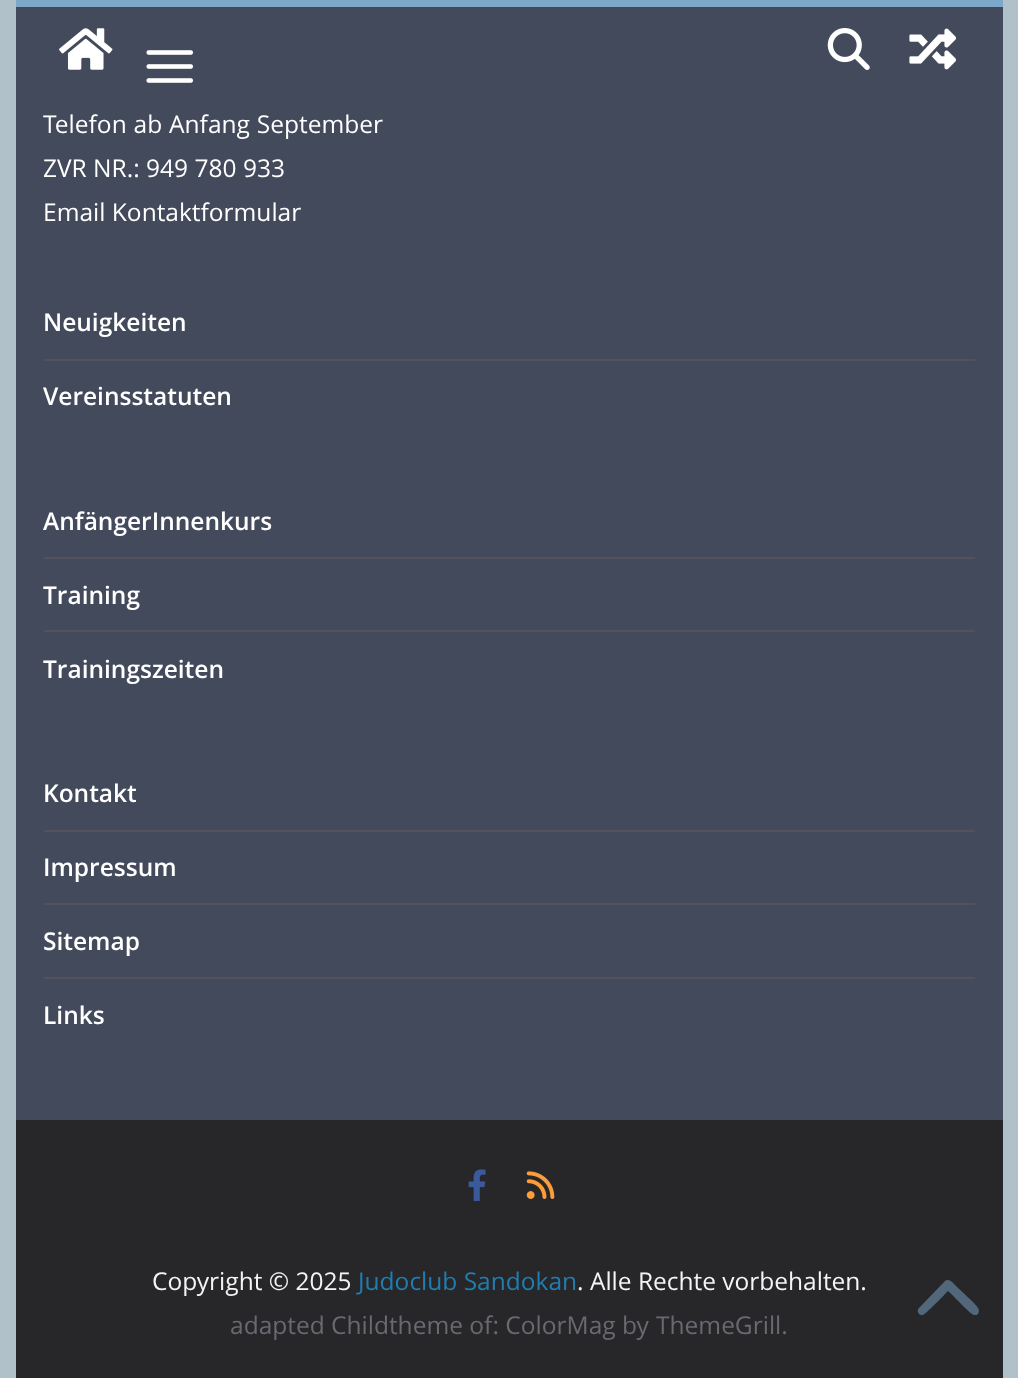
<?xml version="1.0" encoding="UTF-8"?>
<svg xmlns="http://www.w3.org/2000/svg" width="1018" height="1378">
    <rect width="100%" height="100%" fill="#B0C1C9"/>
    <rect x="16" y="0" width="987" height="7" fill="#7CA9C9"/>
    <rect x="16" y="7" width="987" height="1113" fill="#434A5C"/>
    <image x="59" y="28" width="54" height="42" href="img_01.png"/>
    <image x="146" y="50" width="48" height="33" href="img_02.png"/>
    <image x="827" y="28" width="43" height="42" href="img_03.png"/>
    <image x="909" y="28" width="47" height="42" href="img_04.png"/>
    <text font-family="Open Sans" font-size="24.5" fill="#FFFFFF">
        <tspan x="43" y="133" word-spacing="0.5">Telefon ab Anfang September</tspan>
        <tspan x="43" y="177">ZVR NR.: 949 780 933</tspan>
        <tspan x="43" y="221">Email Kontaktformular</tspan>
    </text>
    <rect x="44" y="359" width="931" height="2" fill="#52525B"/>
    <text x="43" y="331" font-family="Open Sans" font-size="24.5" font-weight="600" fill="#FFFFFF">Neuigkeiten</text>
    <text x="43" y="405" font-family="Open Sans" font-size="24.5" font-weight="600" fill="#FFFFFF">Vereinsstatuten</text>
    <rect x="44" y="557" width="931" height="2" fill="#52525B"/>
    <text x="43" y="530" font-family="Open Sans" font-size="24.5" font-weight="600" fill="#FFFFFF">AnfängerInnenkurs</text>
    <rect x="44" y="630" width="931" height="2" fill="#52525B"/>
    <text x="43" y="604" font-family="Open Sans" font-size="24.5" font-weight="600" fill="#FFFFFF">Training</text>
    <text x="43" y="678" font-family="Open Sans" font-size="24.5" font-weight="600" fill="#FFFFFF">Trainingszeiten</text>
    <rect x="44" y="830" width="931" height="2" fill="#52525B"/>
    <text x="43" y="802" font-family="Open Sans" font-size="24.5" font-weight="600" fill="#FFFFFF">Kontakt</text>
    <rect x="44" y="903" width="931" height="2" fill="#52525B"/>
    <text x="43" y="876" font-family="Open Sans" font-size="24.5" font-weight="600" fill="#FFFFFF">Impressum</text>
    <rect x="44" y="977" width="931" height="2" fill="#52525B"/>
    <text x="43" y="950" font-family="Open Sans" font-size="24.5" font-weight="600" fill="#FFFFFF">Sitemap</text>
    <text x="43" y="1024" font-family="Open Sans" font-size="24.5" font-weight="600" fill="#FFFFFF">Links</text>
    <rect x="16" y="1120" width="987" height="258" fill="#27272A"/>
    <image x="468" y="1169" width="18" height="32" href="img_05.png"/>
    <image x="526" y="1171" width="29" height="28" href="img_06.png"/>
    <text x="152" y="1290" font-family="Open Sans" font-size="24.5" fill="#F4F4F5">Copyright © 2025</text>
    <text x="358" y="1290" font-family="Open Sans" font-size="24.5" fill="#207DAF">Judoclub Sandokan</text>
    <text x="577" y="1290" font-family="Open Sans" font-size="24.5" fill="#F4F4F5">. Alle Rechte vorbehalten.</text>
    <text x="230" y="1334" font-family="Open Sans" font-size="24.5" fill="#686A70">adapted Childtheme of: ColorMag by</text>
    <text x="656" y="1334" font-family="Open Sans" font-size="24.5" fill="#686A70">ThemeGrill.</text>
    <path d="M 945 1281 C 949 1278 953 1283 956 1286 L 974 1303 C 976 1306 981 1309 978 1314 C 977 1315 976 1315 974 1315 C 971 1315 952 1294 948 1291 C 945 1294 926 1314 923 1315 C 919 1316 916 1311 919 1308 Z" fill="#52687A"/>
</svg>
